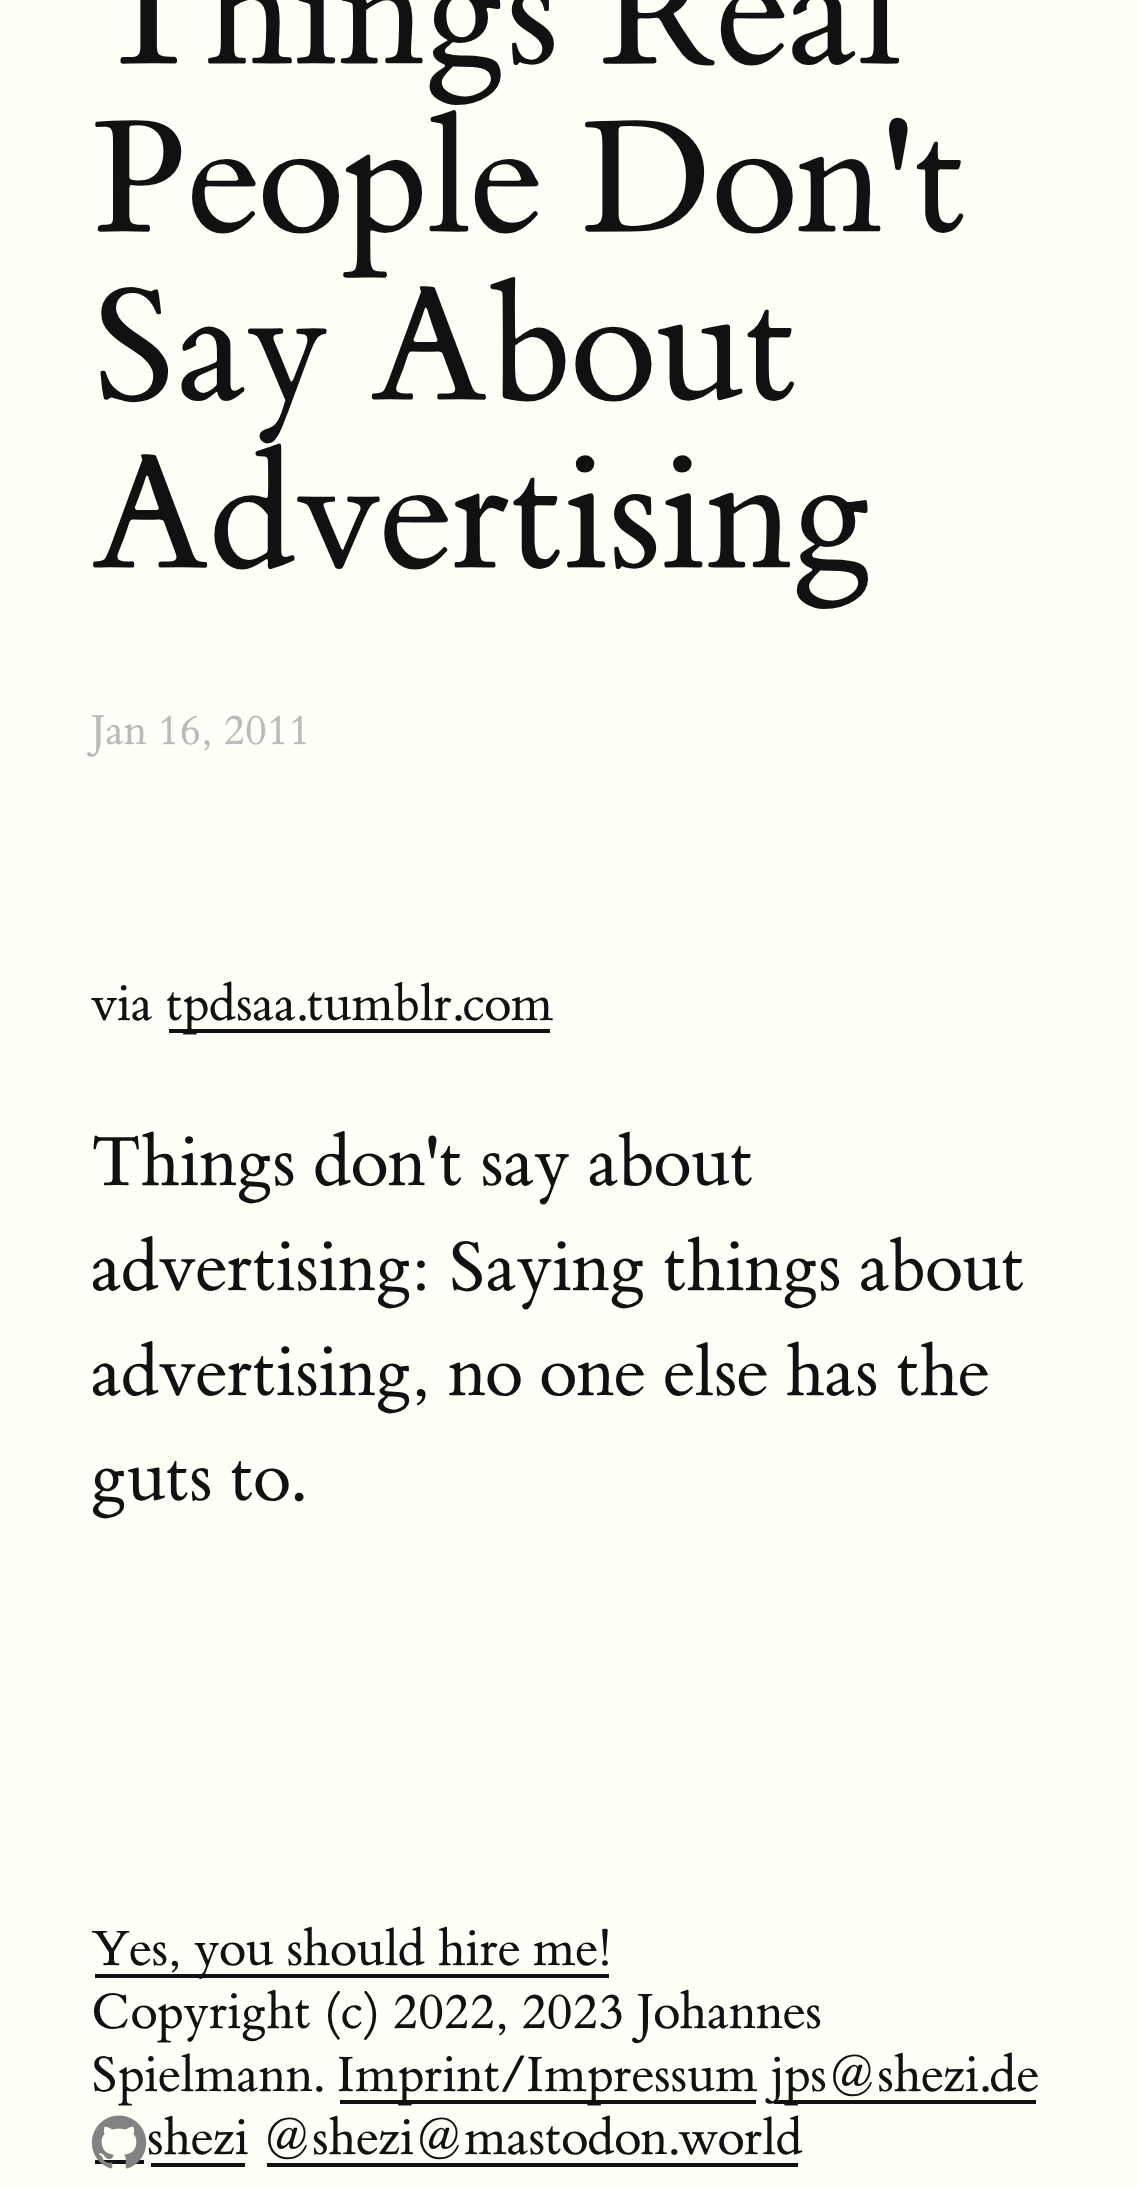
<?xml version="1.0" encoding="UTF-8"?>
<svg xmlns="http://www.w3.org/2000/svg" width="1137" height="2187">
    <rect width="100%" height="100%" fill="#FFFFF8"/>
    <text font-family="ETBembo" font-size="168" fill="#111111">
        <tspan x="91" y="63">Things Real</tspan>
        <tspan x="91" y="231">People Don't</tspan>
        <tspan x="91" y="399">Say About</tspan>
        <tspan x="91" y="567">Advertising</tspan>
    </text>
    <text x="91" y="744" font-family="ETBembo" font-size="44.5" fill="#BBBBBB">Jan 16, 2011</text>
    <text x="91" y="1020" font-family="ETBembo" font-size="52.5" fill="#111111">via</text>
    <rect x="165" y="1029" width="388" height="4" fill="#111111"/>
    <rect x="550" y="1029" width="3" height="4" fill="#FFFFF8"/>
    <rect x="165" y="1029" width="4" height="4" fill="#FFFFF8"/>
    <text x="166" y="1020" font-family="ETBembo" font-size="52.5" fill="#111111">tpdsaa.tumblr.com</text>
    <text font-family="ETBembo" font-size="73.5" fill="#111111">
        <tspan x="91" y="1185">Things don't say about</tspan>
        <tspan x="91" y="1290">advertising: Saying things about</tspan>
        <tspan x="91" y="1395">advertising, no one else has the</tspan>
        <tspan x="91" y="1500">guts to.</tspan>
    </text>
    <rect x="91" y="1974" width="522" height="4" fill="#111111"/>
    <rect x="91" y="1974" width="4" height="4" fill="#FFFFF8"/>
    <text x="91" y="1965" font-family="ETBembo" font-size="52.5" fill="#111111">Yes, you should hire me!</text>
    <rect x="609" y="1974" width="4" height="4" fill="#FFFFF8"/>
    <text font-family="ETBembo" font-size="52.5" fill="#111111">
        <tspan x="91" y="2028">Copyright (c) 2022, 2023 Johannes</tspan>
        <tspan x="91" y="2091">Spielmann.</tspan>
    </text>
    <rect x="336" y="2100" width="424" height="4" fill="#111111"/>
    <rect x="756" y="2100" width="4" height="4" fill="#FFFFF8"/>
    <rect x="336" y="2100" width="4" height="4" fill="#FFFFF8"/>
    <text x="336" y="2091" font-family="ETBembo" font-size="52.5" fill="#111111">Imprint/Impressum</text>
    <rect x="770" y="2100" width="270" height="4" fill="#111111"/>
    <rect x="1036" y="2100" width="4" height="4" fill="#FFFFF8"/>
    <rect x="770" y="2100" width="4" height="4" fill="#FFFFF8"/>
    <text x="771" y="2091" font-family="ETBembo" font-size="52.5" fill="#111111">jps@shezi.de</text>
    <rect x="91" y="2160" width="56" height="4" fill="#111111"/>
    <rect x="144" y="2160" width="3" height="4" fill="#FFFFF8"/>
    <rect x="91" y="2160" width="4" height="4" fill="#FFFFF8"/>
    <rect x="147" y="2163" width="102" height="4" fill="#111111"/>
    <rect x="245" y="2163" width="4" height="4" fill="#FFFFF8"/>
    <rect x="147" y="2163" width="4" height="4" fill="#FFFFF8"/>
    <image x="91" y="2115" width="56" height="54" href="img_01.png"/>
    <text x="147" y="2154" font-family="ETBembo" font-size="52.5" fill="#111111">shezi @shezi@mastodon.world</text>
    <rect x="263" y="2163" width="539" height="4" fill="#111111"/>
    <rect x="263" y="2163" width="4" height="4" fill="#FFFFF8"/>
    <rect x="798" y="2163" width="4" height="4" fill="#FFFFF8"/>
</svg>
